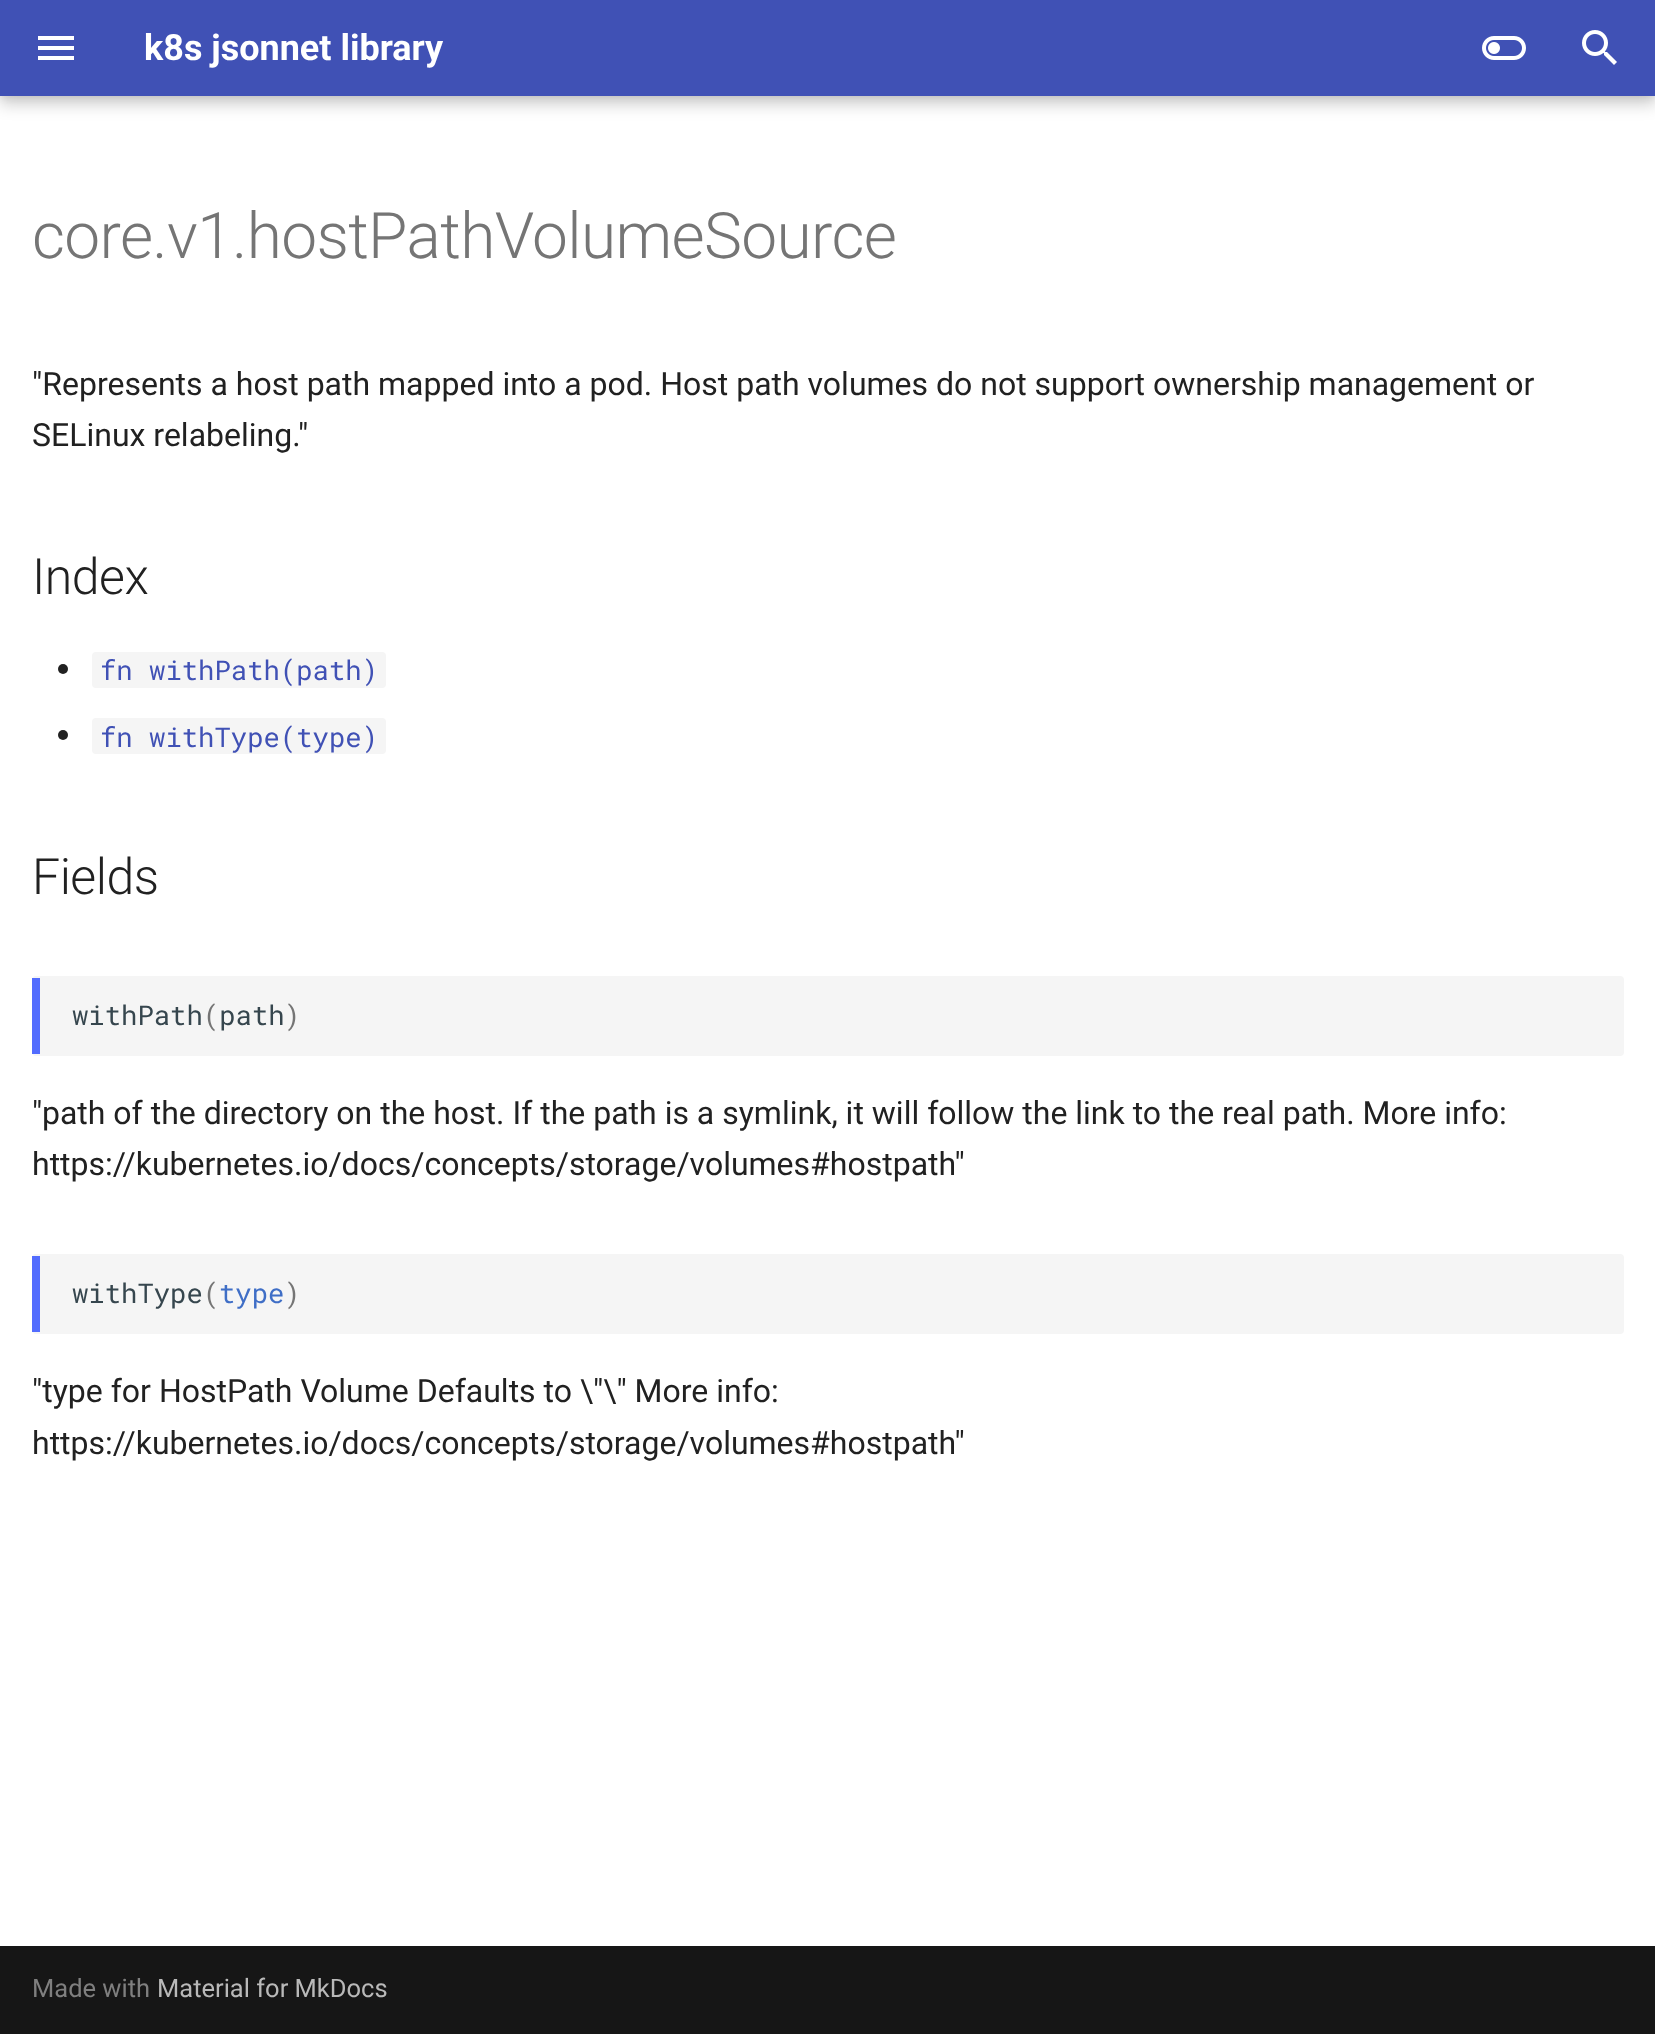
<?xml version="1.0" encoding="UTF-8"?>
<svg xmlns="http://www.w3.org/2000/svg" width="1655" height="2034">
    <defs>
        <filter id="blur1" x="-50%" y="-200%" width="200%" height="500%"><feGaussianBlur stdDeviation="8"/></filter>
        <filter id="blur2" x="-50%" y="-200%" width="200%" height="500%"><feGaussianBlur stdDeviation="4"/></filter>
    </defs>
    <rect width="100%" height="100%" fill="#FFFFFF"/>
    <rect x="0" y="8" width="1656" height="96" fill="#000000" fill-opacity="0.2" filter="url(#blur1)"/>
    <rect x="0" y="0" width="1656" height="96" fill="#000000" fill-opacity="0.1" filter="url(#blur2)"/>
    <rect x="0" y="0" width="1655" height="96" fill="#4051B5"/>
    <path d="M 38 36 H 74 V 40 H 38 Z M 38 46 H 74 V 50 H 38 Z M 38 56 H 74 V 60 H 38 Z" fill="#FFFFFF"/>
    <text x="144" y="60" font-family="Roboto" font-size="36" font-weight="700" fill="#FFFFFF">k8s jsonnet library</text>
    <image x="1482" y="36" width="44" height="24" href="img_01.png"/>
    <image x="1582" y="30" width="35" height="35" href="img_02.png"/>
    <text x="32" y="258" font-family="Roboto" font-size="64" font-weight="300" letter-spacing="-0.65" fill="#757575">core.v1.hostPathVolumeSource</text>
    <text font-family="Roboto" font-size="32" fill="#212121">
        <tspan x="32" y="395">"Represents a host path mapped into a pod. Host path volumes do not support ownership management or</tspan>
        <tspan x="32" y="446">SELinux relabeling."</tspan>
    </text>
    <text x="32" y="594" font-family="Roboto" font-size="50" font-weight="300" letter-spacing="-0.5" fill="#212121">Index</text>
    <circle cx="63" cy="669" r="5" fill="#212121"/>
    <rect x="92" y="652" width="294" height="36" rx="4" fill="#F5F5F5"/>
    <text x="100" y="680" font-family="Roboto Mono" font-size="27.25" fill="#4051B5">fn withPath(path)</text>
    <circle cx="63" cy="735" r="5" fill="#212121"/>
    <rect x="92" y="718" width="294" height="36" rx="4" fill="#F5F5F5"/>
    <text x="100" y="747" font-family="Roboto Mono" font-size="27.25" fill="#4051B5">fn withType(type)</text>
    <text x="32" y="894" font-family="Roboto" font-size="50" font-weight="300" letter-spacing="-0.5" fill="#212121">Fields</text>
    <rect x="32" y="976" width="1592" height="80" rx="4" fill="#F5F5F5"/>
    <rect x="32" y="978" width="8" height="76" fill="#526CFE"/>
    <text x="72" y="1025" font-family="Roboto Mono" font-size="27.25" fill="#36464E">withPath path</text>
    <text x="203" y="1025" font-family="Roboto Mono" font-size="27.25" fill="#757575">(</text>
    <text x="284" y="1025" font-family="Roboto Mono" font-size="27.25" fill="#757575">)</text>
    <text font-family="Roboto" font-size="32" fill="#212121">
        <tspan x="32" y="1124">"path of the directory on the host. If the path is a symlink, it will follow the link to the real path. More info:</tspan>
        <tspan x="32" y="1175">https://kubernetes.io/docs/concepts/storage/volumes#hostpath"</tspan>
    </text>
    <rect x="32" y="1254" width="1592" height="80" rx="4" fill="#F5F5F5"/>
    <rect x="32" y="1256" width="8" height="76" fill="#526CFE"/>
    <text x="72" y="1303" font-family="Roboto Mono" font-size="27.25" fill="#36464E">withType</text>
    <text x="203" y="1303" font-family="Roboto Mono" font-size="27.25" fill="#757575">(</text>
    <text x="219" y="1303" font-family="Roboto Mono" font-size="27.25" fill="#3F6EC6">type</text>
    <text x="284" y="1303" font-family="Roboto Mono" font-size="27.25" fill="#757575">)</text>
    <text font-family="Roboto" font-size="32" fill="#212121">
        <tspan x="32" y="1402">"type for HostPath Volume Defaults to \"\" More info:</tspan>
        <tspan x="32" y="1454">https://kubernetes.io/docs/concepts/storage/volumes#hostpath"</tspan>
    </text>
    <rect x="0" y="1946" width="1655" height="88" fill="#161616"/>
    <text x="32" y="1997" font-family="Roboto" font-size="25.5" fill="#7F7F7F">Made with</text>
    <text x="157" y="1997" font-family="Roboto" font-size="25.5" fill="#B9B9B9">Material for MkDocs</text>
</svg>
